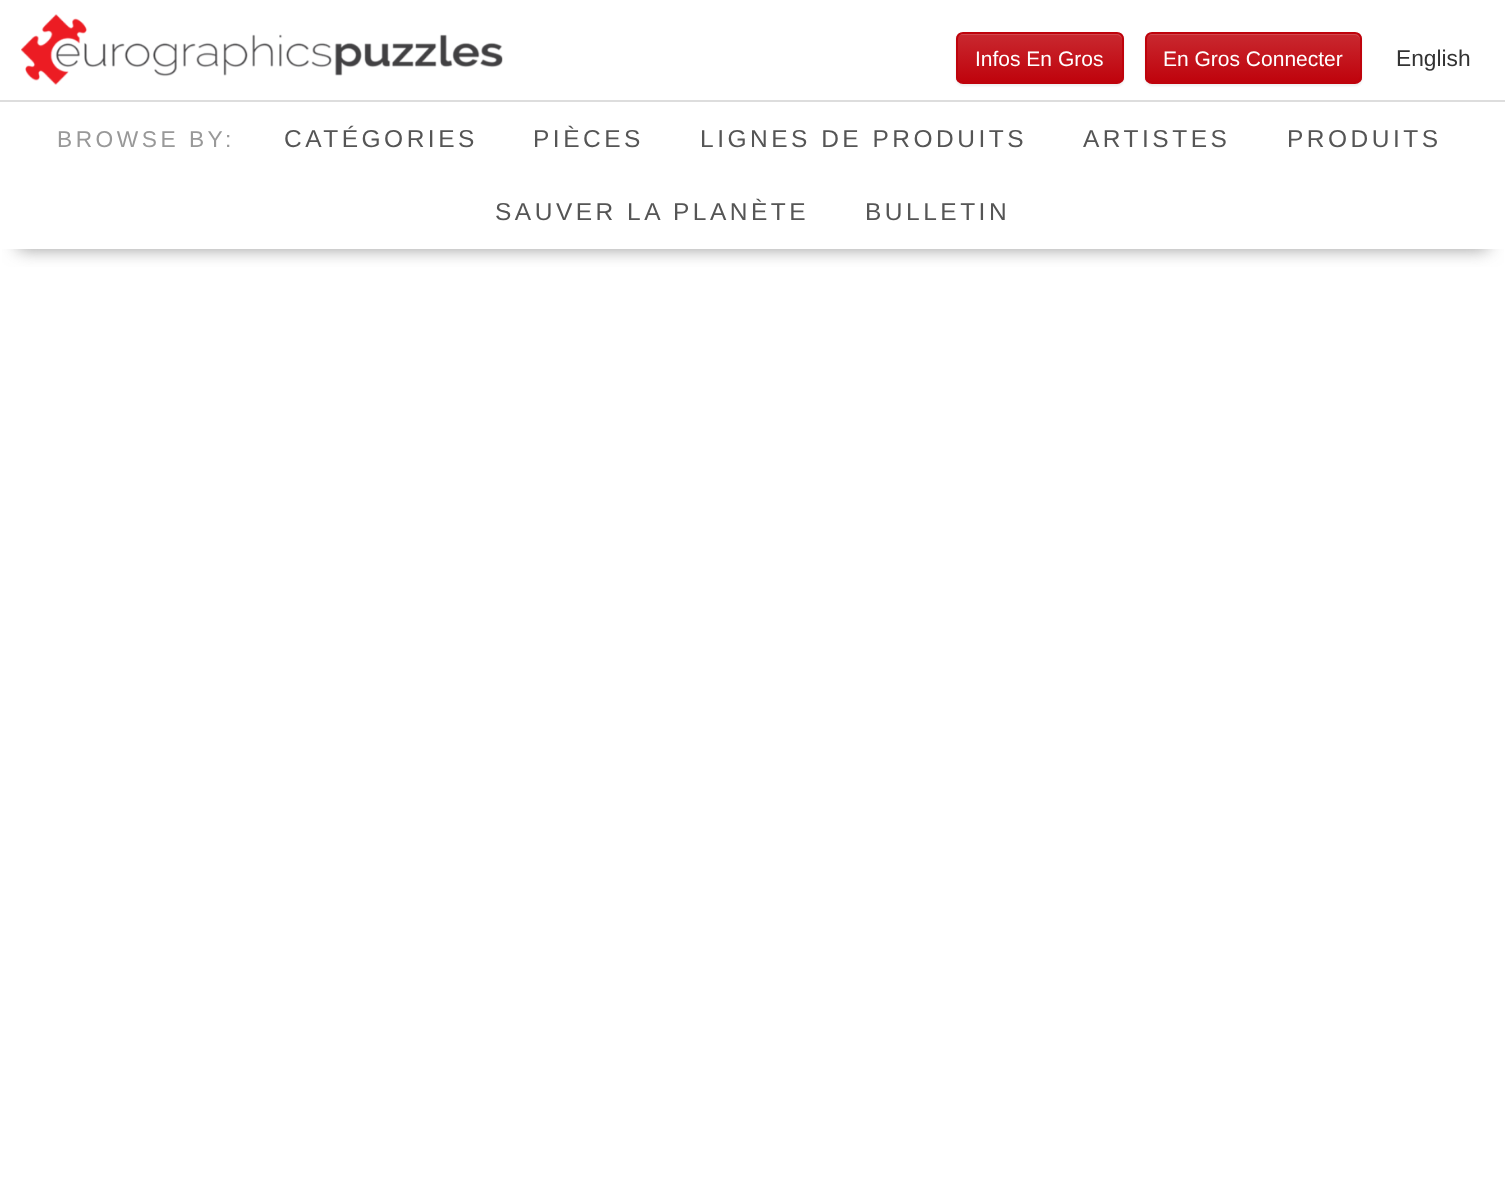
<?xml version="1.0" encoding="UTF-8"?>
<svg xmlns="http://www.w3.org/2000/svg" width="1505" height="1204">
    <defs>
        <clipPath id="clip1"><rect x="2" y="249" width="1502" height="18"/></clipPath>
        <filter id="blur1" x="-50%" y="-200%" width="200%" height="500%"><feGaussianBlur stdDeviation="9"/></filter>
        <filter id="blur2" x="-50%" y="-200%" width="200%" height="500%"><feGaussianBlur stdDeviation="1"/></filter>
        <clipPath id="clip2"><rect x="956" y="32" width="168" height="52" rx="7"/></clipPath>
        <linearGradient id="g1" gradientUnits="userSpaceOnUse" x1="1040" y1="33" x2="1040" y2="82"><stop offset="0" stop-color="#C92930"/><stop offset="1" stop-color="#BF030C"/></linearGradient>
        <clipPath id="clip3"><rect x="1145" y="32" width="217" height="52" rx="7"/></clipPath>
        <linearGradient id="g2" gradientUnits="userSpaceOnUse" x1="1253" y1="33" x2="1253" y2="82"><stop offset="0" stop-color="#C92930"/><stop offset="1" stop-color="#BF030C"/></linearGradient>
    </defs>
    <rect width="100%" height="100%" fill="#FFFFFF"/>
    <g clip-path="url(#clip1)">
        <rect x="18" y="35" width="1470" height="214" fill="#999999" filter="url(#blur1)"/>
    </g>
    <rect x="0" y="100" width="1505" height="2" fill="#DDDDDD"/>
    <image x="21" y="14" width="482" height="71" href="img_01.png"/>
    <rect x="956" y="33" width="168" height="53" rx="7" fill="#222222" fill-opacity="0.07" filter="url(#blur2)"/>
    <g clip-path="url(#clip2)">
        <rect x="956" y="33" width="168" height="49" fill="url(#g1)"/>
    </g>
    <path d="M 962 35 H 1116 C 1119 35 1122 37 1122 40 V 38 C 1122 35 1120 33 1117 33 H 962 C 959 33 957 35 957 38 V 40 C 957 37 960 35 962 35 Z" fill="#FFFFFF" fill-opacity="0.15"/>
    <rect x="957" y="33" width="166" height="50" rx="6" fill="none" stroke="#BF030C" stroke-width="2"/>
    <text x="975" y="66" font-family="Liberation Sans" font-size="21" fill="#FFFFFF">Infos En Gros</text>
    <rect x="1145" y="33" width="217" height="53" rx="7" fill="#222222" fill-opacity="0.07" filter="url(#blur2)"/>
    <g clip-path="url(#clip3)">
        <rect x="1145" y="33" width="217" height="49" fill="url(#g2)"/>
    </g>
    <path d="M 1152 35 H 1354 C 1357 35 1360 37 1360 40 V 38 C 1360 35 1358 33 1355 33 H 1151 C 1148 33 1146 35 1146 38 V 40 C 1146 37 1149 35 1152 35 Z" fill="#FFFFFF" fill-opacity="0.15"/>
    <rect x="1146" y="33" width="215" height="50" rx="6" fill="none" stroke="#BF030C" stroke-width="2"/>
    <text x="1163" y="66" font-family="Liberation Sans" font-size="21" fill="#FFFFFF">En Gros Connecter</text>
    <text x="1396" y="66" font-family="Liberation Sans" font-size="22.75" fill="#333333">English</text>
    <rect x="6" y="248" width="1494" height="1" fill="#FFFFFF"/>
    <text x="57" y="147" font-family="Liberation Sans" font-size="22.75" letter-spacing="3.5" fill="#999999">BROWSE BY:</text>
    <text x="284" y="147" font-family="Liberation Sans" font-size="24.5" letter-spacing="3.5" fill="#555555">CATÉGORIES</text>
    <text x="533" y="147" font-family="Liberation Sans" font-size="24.5" letter-spacing="3.5" fill="#555555">PIÈCES</text>
    <text x="700" y="147" font-family="Liberation Sans" font-size="24.5" letter-spacing="3.5" fill="#555555">LIGNES DE PRODUITS</text>
    <text x="1083" y="147" font-family="Liberation Sans" font-size="24.5" letter-spacing="3.5" fill="#555555">ARTISTES</text>
    <text x="1287" y="147" font-family="Liberation Sans" font-size="24.5" letter-spacing="3.5" fill="#555555">PRODUITS</text>
    <text x="495" y="220" font-family="Liberation Sans" font-size="24.5" letter-spacing="3.5" fill="#555555">SAUVER LA PLANÈTE</text>
    <text x="865" y="220" font-family="Liberation Sans" font-size="24.5" letter-spacing="3.5" fill="#555555">BULLETIN</text>
</svg>
